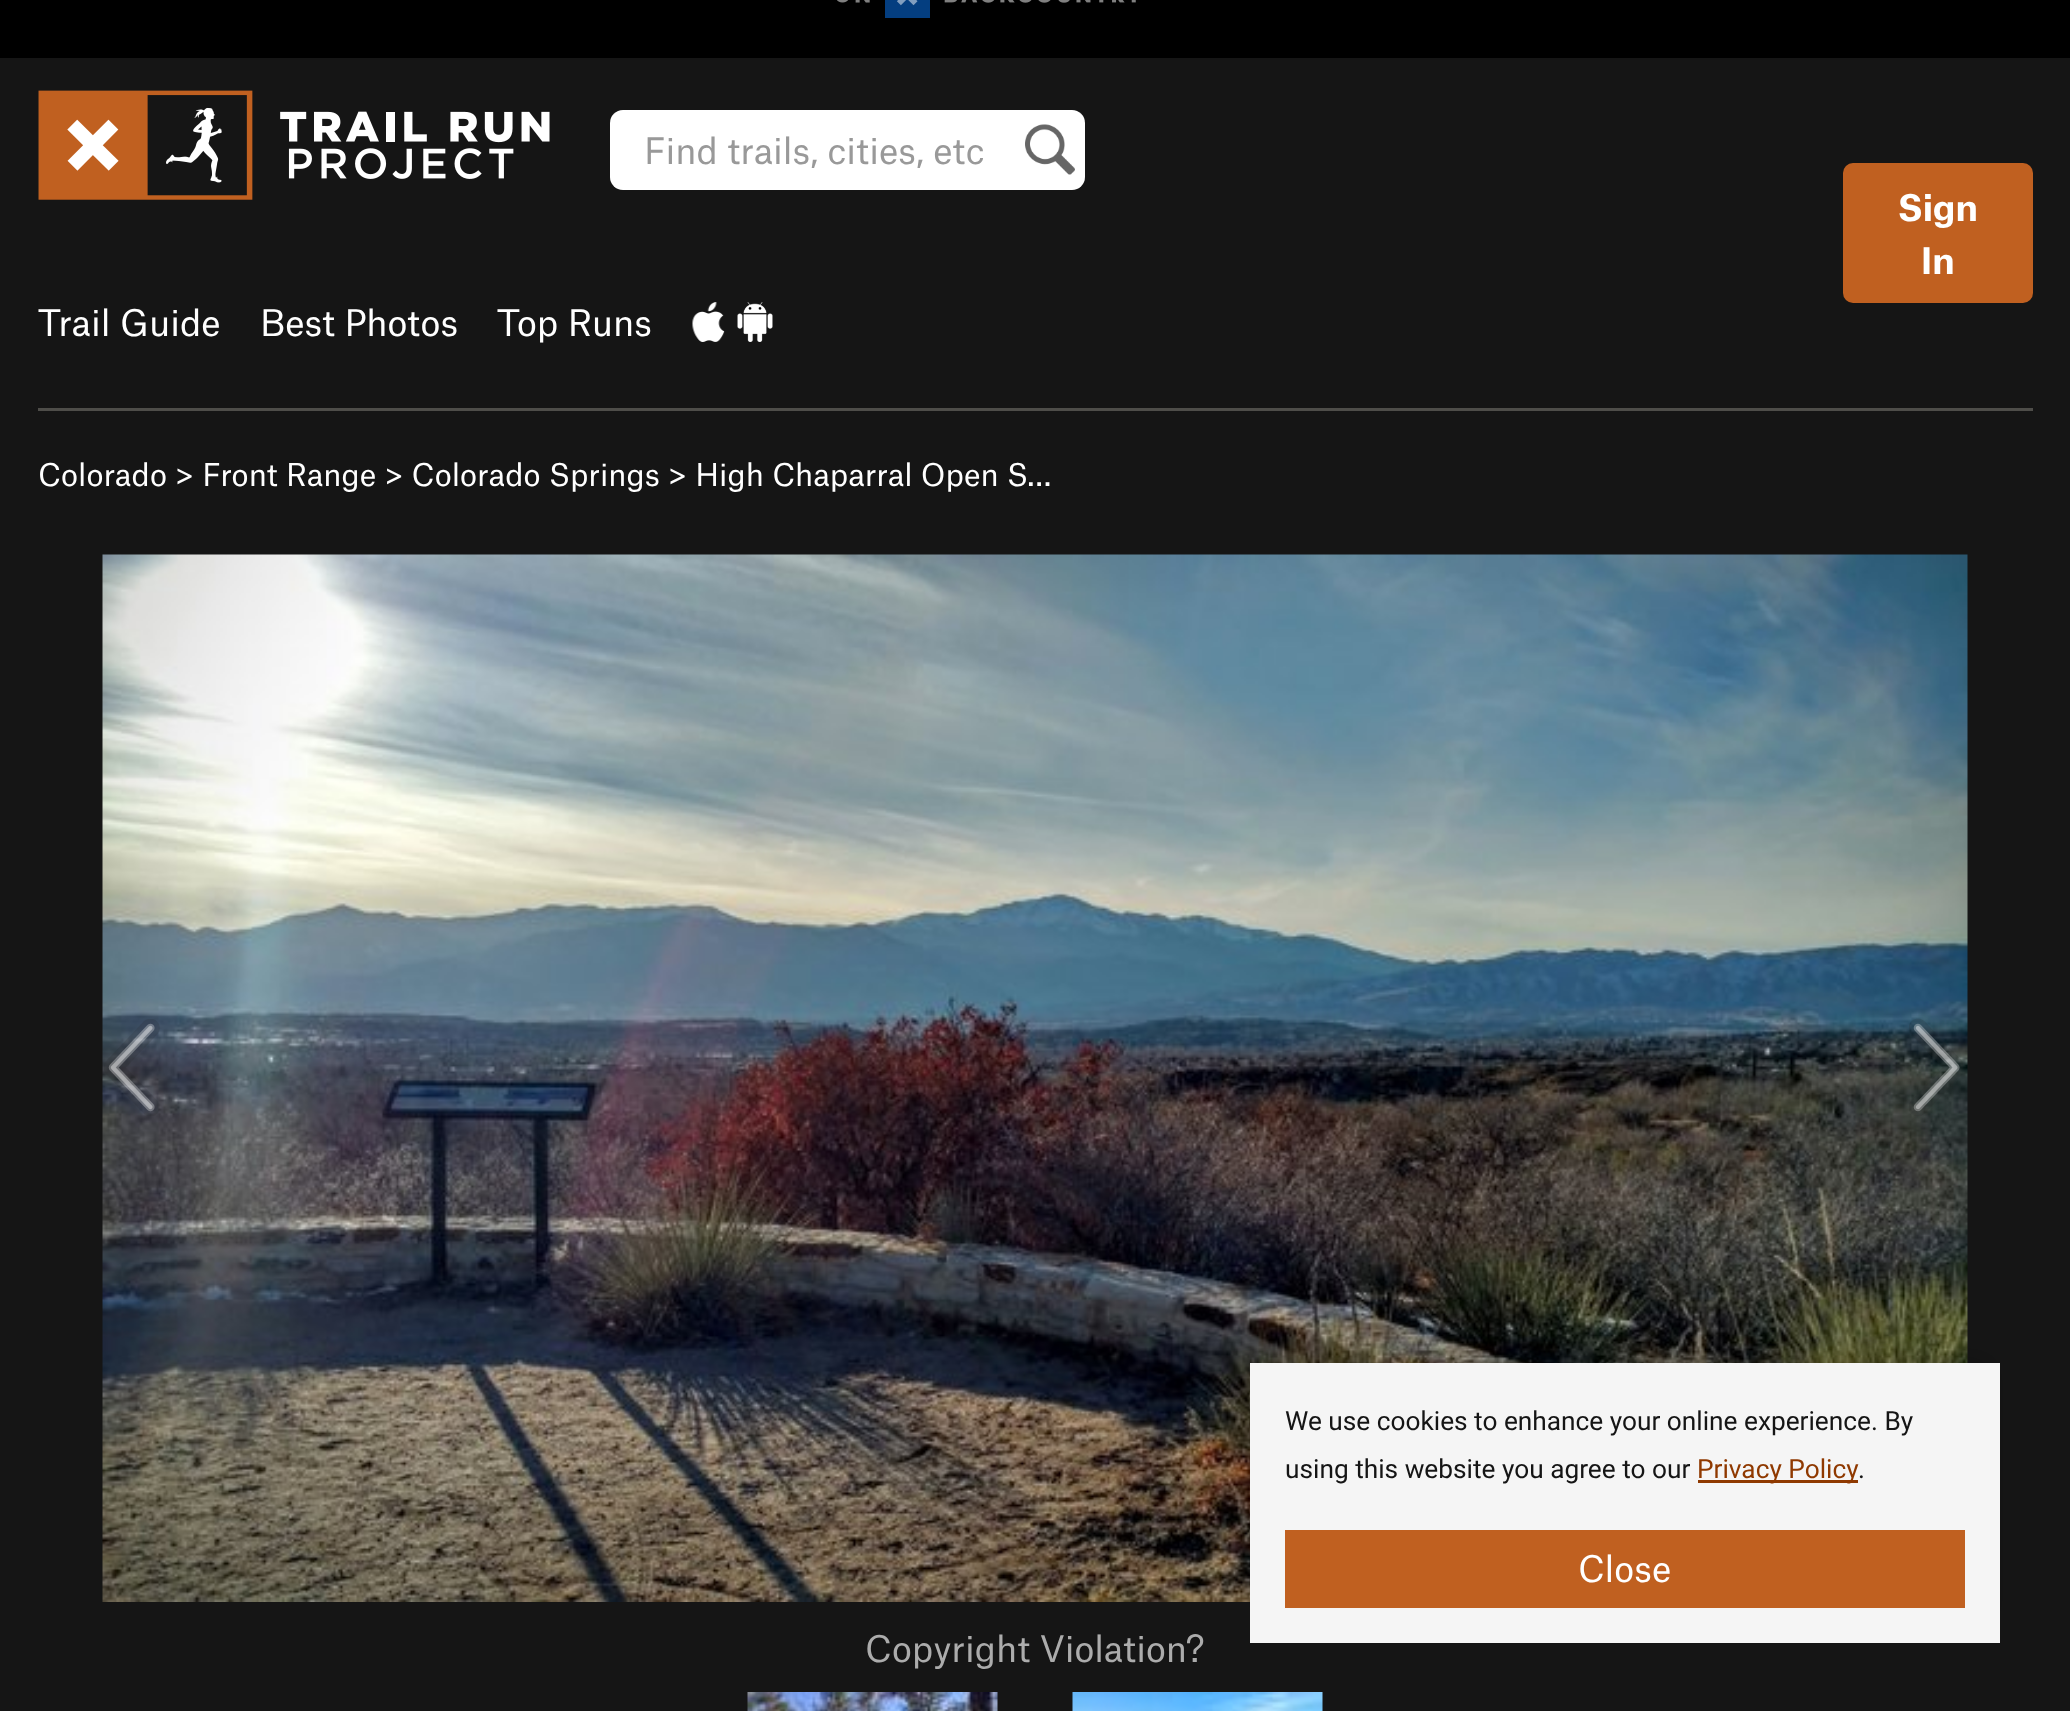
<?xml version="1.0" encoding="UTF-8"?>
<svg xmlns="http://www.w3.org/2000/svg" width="2070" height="1711">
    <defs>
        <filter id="blur1" x="-50%" y="-200%" width="200%" height="500%"><feGaussianBlur stdDeviation="12.5"/></filter>
    </defs>
    <rect width="100%" height="100%" fill="#151515"/>
    <rect x="0" y="0" width="2070" height="58" fill="#000000"/>
    <image x="837" y="0" width="299" height="18" href="img_01.png"/>
    <image x="38" y="90" width="512" height="110" href="img_02.png"/>
    <rect x="610" y="110" width="475" height="80" rx="13" fill="#FFFFFF"/>
    <image x="1025" y="124" width="50" height="51" href="img_03.png"/>
    <text x="644" y="164" font-family="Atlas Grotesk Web" font-size="35" fill="#999999">Find trails, cities, etc</text>
    <text x="38" y="336" font-family="Atlas Grotesk Web" font-size="35" fill="#FFFFFF">Trail Guide</text>
    <text x="260" y="336" font-family="Atlas Grotesk Web" font-size="35" fill="#FFFFFF">Best Photos</text>
    <text x="497" y="336" font-family="Atlas Grotesk Web" font-size="35" fill="#FFFFFF">Top Runs</text>
    <image x="692" y="302" width="33" height="40" href="img_04.png"/>
    <image x="737" y="302" width="36" height="40" href="img_05.png"/>
    <rect x="1843" y="163" width="190" height="140" rx="10" fill="#C06020"/>
    <text x="1898" y="221" font-family="Atlas Grotesk Web" font-size="35" font-weight="700" fill="#FFFFFF">Sign</text>
    <text x="1921" y="274" font-family="Atlas Grotesk Web" font-size="35" font-weight="700" fill="#FFFFFF">In</text>
    <rect x="38" y="408" width="1995" height="3" fill="#4E4D49"/>
    <text x="38" y="486" font-family="Atlas Grotesk Web" font-size="30" fill="#FFFFFF">Colorado &gt; Front Range &gt; Colorado Springs &gt; High Chaparral Open S…</text>
    <image x="102" y="554" width="1866" height="1048" href="img_06.png"/>
    <image x="104" y="1019" width="56" height="97" href="img_07.png"/>
    <image x="1909" y="1018" width="54" height="98" href="img_08.png"/>
    <text x="865" y="1662" font-family="Atlas Grotesk Web" font-size="35" fill="#ACACAC">Copyright Violation?</text>
    <image x="747" y="1692" width="251" height="19" href="img_09.png"/>
    <image x="1072" y="1692" width="251" height="19" href="img_10.png"/>
    <rect x="1263" y="1363" width="725" height="255" fill="#000000" fill-opacity="0.25" filter="url(#blur1)"/>
    <rect x="1250" y="1363" width="750" height="280" fill="#F5F5F5"/>
    <text font-family="Roboto" font-size="26.25" fill="#151515">
        <tspan x="1285" y="1430">We use cookies to enhance your online experience. By</tspan>
        <tspan x="1285" y="1478">using this website you agree to our</tspan>
    </text>
    <rect x="1698" y="1480" width="160" height="3" fill="#8F3900"/>
    <text x="1697" y="1478" font-family="Roboto" font-size="26.25" fill="#8F3900">Privacy Policy</text>
    <text x="1858" y="1478" font-family="Roboto" font-size="26.25" fill="#151515">.</text>
    <rect x="1285" y="1530" width="680" height="78" fill="#C06020"/>
    <text x="1578" y="1582" font-family="Atlas Grotesk Web" font-size="35" fill="#FFFFFF">Close</text>
</svg>
